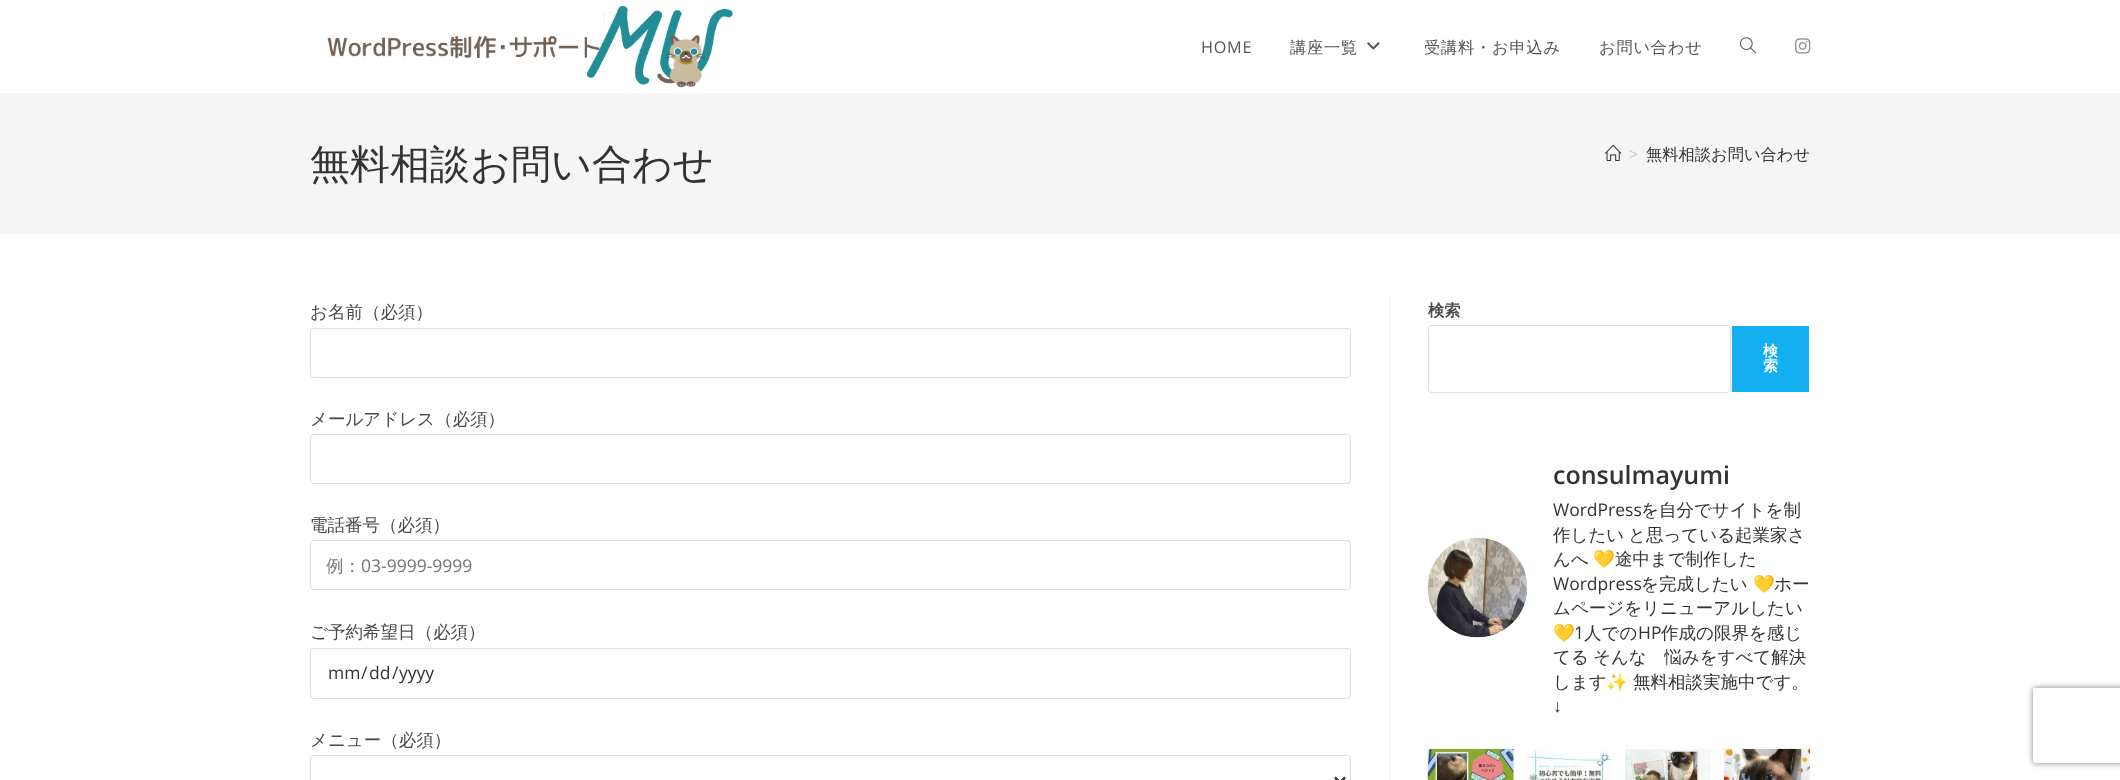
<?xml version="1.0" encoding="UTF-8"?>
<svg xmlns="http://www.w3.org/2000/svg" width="2120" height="780">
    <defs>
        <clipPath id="clip1"><path d="M 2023 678 H 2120 V 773 H 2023 Z M 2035.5 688 H 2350.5 C 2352 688 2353 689 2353 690.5 V 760.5 C 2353 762 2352 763 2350.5 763 H 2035.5 C 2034 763 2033 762 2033 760.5 V 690.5 C 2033 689 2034 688 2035.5 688 Z" clip-rule="evenodd"/></clipPath>
        <filter id="blur1" x="-50%" y="-200%" width="200%" height="500%"><feGaussianBlur stdDeviation="3"/></filter>
    </defs>
    <rect width="100%" height="100%" fill="#FFFFFF"/>
    <image x="327" y="5" width="406" height="83" href="img_01.png"/>
    <text x="1201" y="53" font-family="Open Sans" font-size="16.25" letter-spacing="0.75" fill="#555555">HOME</text>
    <text x="1290" y="53" font-family="WenQuanYi Zen Hei" font-size="16.25" font-weight="500" letter-spacing="0.75" fill="#555555">講座一覧</text>
    <image x="1367" y="42" width="13" height="8" href="img_02.png"/>
    <text x="1424" y="53" font-family="WenQuanYi Zen Hei" font-size="16.25" font-weight="500" letter-spacing="0.75" fill="#555555">受講料・お申込み</text>
    <text x="1599" y="53" font-family="WenQuanYi Zen Hei" font-size="16.25" font-weight="500" letter-spacing="0.75" fill="#555555">お問い合わせ</text>
    <image x="1740" y="37" width="17" height="17" href="img_03.png"/>
    <image x="1795" y="38" width="16" height="16" href="img_04.png"/>
    <rect x="0" y="93" width="2120" height="141" fill="#F5F5F5"/>
    <text x="310" y="178" font-family="WenQuanYi Zen Hei" font-size="40" font-weight="500" fill="#333333">無料相談お問い合わせ</text>
    <image x="1605" y="144" width="17" height="17" href="img_05.png"/>
    <text x="1629" y="160" font-family="Open Sans" font-size="16.25" fill="#C6C6C6">&gt;</text>
    <text x="1646" y="160" font-family="WenQuanYi Zen Hei" font-size="16.25" font-weight="500" fill="#333333">無料相談お問い合わせ</text>
    <rect x="1389" y="296" width="1" height="484" fill="#F1F1F1"/>
    <text x="310" y="318" font-family="WenQuanYi Zen Hei" font-size="17.5" font-weight="500" fill="#4A4A4A">お名前（必須）</text>
    <rect x="310.5" y="328.5" width="1040" height="49" rx="3.5" fill="none" stroke="#DDDDDD"/>
    <text x="310" y="425" font-family="WenQuanYi Zen Hei" font-size="17.5" font-weight="500" fill="#4A4A4A">メールアドレス（必須）</text>
    <rect x="310.5" y="434.5" width="1040" height="49" rx="3.5" fill="none" stroke="#DDDDDD"/>
    <text x="310" y="531" font-family="WenQuanYi Zen Hei" font-size="17.5" font-weight="500" fill="#4A4A4A">電話番号（必須）</text>
    <rect x="310.5" y="540.5" width="1040" height="49" rx="3.5" fill="none" stroke="#DDDDDD"/>
    <text x="326" y="572" font-family="WenQuanYi Zen Hei" font-size="17.5" font-weight="500" fill="#757575">例：</text>
    <text x="361" y="572" font-family="Open Sans" font-size="17.5" fill="#757575">03-9999-9999</text>
    <text x="310" y="638" font-family="WenQuanYi Zen Hei" font-size="17.5" font-weight="500" fill="#4A4A4A">ご予約希望日（必須）</text>
    <rect x="310.5" y="648.5" width="1040" height="50" rx="3.5" fill="none" stroke="#DDDDDD"/>
    <text x="328" y="679" font-family="Open Sans" font-size="17.5" fill="#333333">mm</text>
    <text x="361" y="679" font-family="Open Sans" font-size="17.5" fill="#333333">/</text>
    <text x="369" y="679" font-family="Open Sans" font-size="17.5" fill="#333333">dd</text>
    <text x="392" y="679" font-family="Open Sans" font-size="17.5" fill="#333333">/</text>
    <text x="399" y="679" font-family="Open Sans" font-size="17.5" fill="#333333">yyyy</text>
    <text x="310" y="746" font-family="WenQuanYi Zen Hei" font-size="17.5" font-weight="500" fill="#4A4A4A">メニュー（必須）</text>
    <rect x="310.5" y="755.5" width="1040" height="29" rx="3.5" fill="none" stroke="#DDDDDD"/>
    <path d="M 1335 777.5 L 1340 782.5 L 1345 777.5" fill="none" stroke="#333333" stroke-width="2.5"/>
    <text x="1428" y="316" font-family="WenQuanYi Zen Hei" font-size="16.25" font-weight="700" fill="#4A4A4A">検索</text>
    <rect x="1428.5" y="325.5" width="302" height="67" rx="3.5" fill="none" stroke="#DDDDDD"/>
    <rect x="1732" y="326" width="77" height="66" fill="#13AFF0"/>
    <text font-family="WenQuanYi Zen Hei" font-size="15" font-weight="700" letter-spacing="2" fill="#FFFFFF">
        <tspan x="1763" y="356">検</tspan>
        <tspan x="1763" y="371">索</tspan>
    </text>
    <image x="1427" y="537" width="101" height="101" href="img_06.png"/>
    <text x="1553" y="484" font-family="Open Sans" font-size="25" font-weight="600" fill="#333333">consulmayumi</text>
    <text x="1553" y="516" font-family="Open Sans" font-size="17.5" fill="#333333">WordPress</text>
    <text x="1641" y="516" font-family="WenQuanYi Zen Hei" font-size="17.5" font-weight="500" fill="#333333">を自分でサイトを制</text>
    <text x="1553" y="541" font-family="WenQuanYi Zen Hei" font-size="17.5" font-weight="500" fill="#333333">作したい</text>
    <text x="1628" y="541" font-family="WenQuanYi Zen Hei" font-size="17.5" font-weight="500" fill="#333333">と思っている起業家さ</text>
    <text x="1553" y="565" font-family="WenQuanYi Zen Hei" font-size="17.5" font-weight="500" fill="#333333">んへ</text>
    <text x="1593" y="565" font-family="Noto Color Emoji" font-size="17.5" fill="#333333">💛</text>
    <text x="1615" y="565" font-family="WenQuanYi Zen Hei" font-size="17.5" font-weight="500" fill="#333333">途中まで制作した</text>
    <text x="1553" y="590" font-family="Open Sans" font-size="17.5" fill="#333333">Wordpress</text>
    <text x="1641" y="590" font-family="WenQuanYi Zen Hei" font-size="17.5" font-weight="500" fill="#333333">を完成したい</text>
    <text x="1753" y="590" font-family="Noto Color Emoji" font-size="17.5" fill="#333333">💛</text>
    <text x="1774" y="590" font-family="WenQuanYi Zen Hei" font-size="17.5" font-weight="500" fill="#333333">ホー</text>
    <text x="1553" y="614" font-family="WenQuanYi Zen Hei" font-size="17.5" font-weight="500" fill="#333333">ムページをリニューアルしたい</text>
    <text x="1553" y="639" font-family="Noto Color Emoji" font-size="17.5" fill="#333333">💛</text>
    <text x="1574" y="639" font-family="Open Sans" font-size="17.5" fill="#333333">1</text>
    <text x="1584" y="639" font-family="WenQuanYi Zen Hei" font-size="17.5" font-weight="500" fill="#333333">人での</text>
    <text x="1638" y="639" font-family="Open Sans" font-size="17.5" fill="#333333">HP</text>
    <text x="1661" y="639" font-family="WenQuanYi Zen Hei" font-size="17.5" font-weight="500" fill="#333333">作成の限界を感じ</text>
    <text x="1553" y="663" font-family="WenQuanYi Zen Hei" font-size="17.5" font-weight="500" fill="#333333">てる</text>
    <text x="1593" y="663" font-family="WenQuanYi Zen Hei" font-size="17.5" font-weight="500" fill="#333333">そんな　悩みをすべて解決</text>
    <text x="1553" y="688" font-family="WenQuanYi Zen Hei" font-size="17.5" font-weight="500" fill="#333333">します</text>
    <text x="1606" y="688" font-family="Noto Color Emoji" font-size="17.5" fill="#333333">✨</text>
    <text x="1633" y="688" font-family="WenQuanYi Zen Hei" font-size="17.5" font-weight="500" fill="#333333">無料相談実施中です。</text>
    <text x="1553" y="712" font-family="Liberation Sans" font-size="17.5" fill="#333333">↓</text>
    <image x="1427" y="748" width="87" height="32" href="img_07.png"/>
    <image x="1526" y="749" width="86" height="31" href="img_08.png"/>
    <image x="1625" y="749" width="86" height="31" href="img_09.png"/>
    <image x="1723" y="748" width="87" height="32" href="img_10.png"/>
    <g clip-path="url(#clip1)">
        <rect x="2033" y="688" width="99" height="75" rx="2.5" fill="#808080" filter="url(#blur1)"/>
    </g>
</svg>
